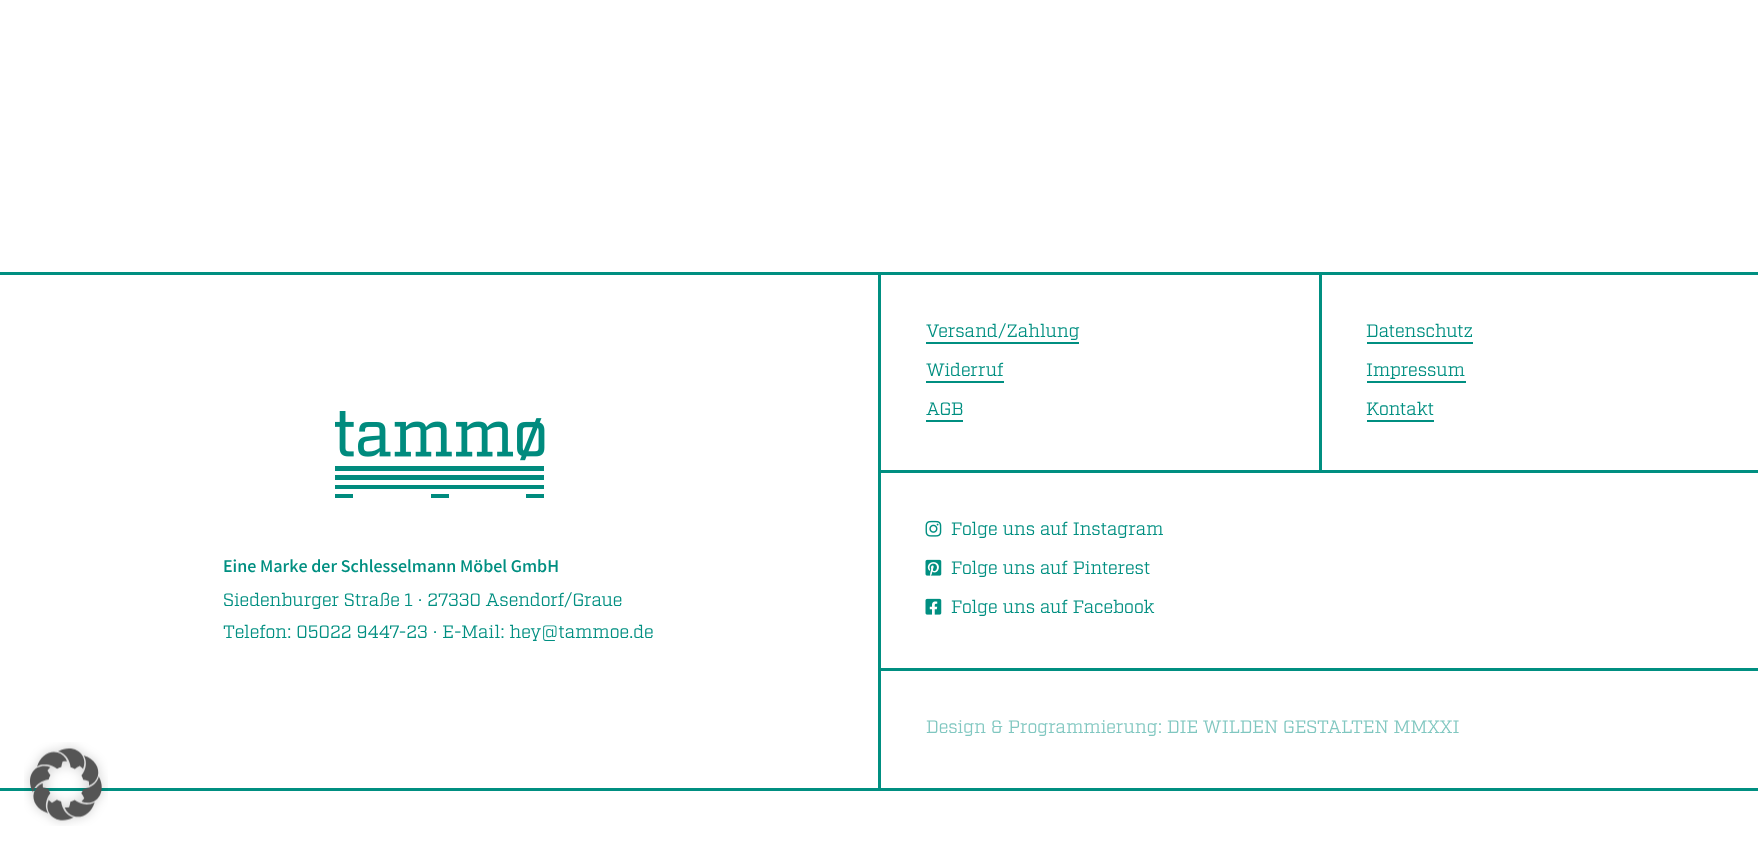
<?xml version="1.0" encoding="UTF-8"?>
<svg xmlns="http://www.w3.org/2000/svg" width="1758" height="850">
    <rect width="100%" height="100%" fill="#FFFFFF"/>
    <rect x="0" y="272" width="1758" height="3" fill="#008F81"/>
    <rect x="0" y="788" width="1758" height="3" fill="#008F81"/>
    <rect x="878" y="275" width="3" height="513" fill="#008F81"/>
    <image x="335" y="411" width="210" height="87" href="img_01.png"/>
    <text x="223" y="572" font-family="Varta" font-size="18" font-weight="300" fill="#008F81">Eine Marke der Schlesselmann Möbel GmbH</text>
    <text font-family="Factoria" font-size="18" fill="#008F81">
        <tspan x="223" y="606">Siedenburger Straße 1 · 27330 Asendorf/Graue</tspan>
        <tspan x="223" y="638">Telefon: 05022 9447-23 · E-Mail: hey@tammoe.de</tspan>
    </text>
    <rect x="1319" y="275" width="3" height="195" fill="#008F81"/>
    <text x="926" y="337" font-family="Factoria" font-size="18" fill="#008F81">Versand/Zahlung</text>
    <rect x="926" y="342" width="153" height="2" fill="#008F81"/>
    <text x="926" y="376" font-family="Factoria" font-size="18" fill="#008F81">Widerruf</text>
    <rect x="926" y="381" width="78" height="2" fill="#008F81"/>
    <text x="926" y="415" font-family="Factoria" font-size="18" fill="#008F81">AGB</text>
    <rect x="926" y="420" width="37" height="2" fill="#008F81"/>
    <text x="1366" y="337" font-family="Factoria" font-size="18" fill="#008F81">Datenschutz</text>
    <rect x="1367" y="342" width="106" height="2" fill="#008F81"/>
    <text x="1366" y="376" font-family="Factoria" font-size="18" fill="#008F81">Impressum</text>
    <rect x="1367" y="381" width="99" height="2" fill="#008F81"/>
    <text x="1366" y="415" font-family="Factoria" font-size="18" fill="#008F81">Kontakt</text>
    <rect x="1367" y="420" width="67" height="2" fill="#008F81"/>
    <rect x="881" y="470" width="877" height="3" fill="#008F81"/>
    <image x="925" y="520" width="17" height="17" href="img_02.png"/>
    <text x="951" y="535" font-family="Factoria" font-size="18" fill="#008F81">Folge uns auf Instagram</text>
    <image x="925" y="559" width="17" height="17" href="img_03.png"/>
    <text x="951" y="574" font-family="Factoria" font-size="18" fill="#008F81">Folge uns auf Pinterest</text>
    <image x="925" y="598" width="17" height="17" href="img_04.png"/>
    <text x="951" y="613" font-family="Factoria" font-size="18" fill="#008F81">Folge uns auf Facebook</text>
    <rect x="881" y="668" width="877" height="3" fill="#008F81"/>
    <text x="926" y="733" font-family="Factoria" font-size="18" fill="#80C7C0">Design &amp; Programmierung: DIE WILDEN GESTALTEN MMXXI</text>
    <image x="24" y="742" width="84" height="84" href="img_05.png"/>
</svg>
